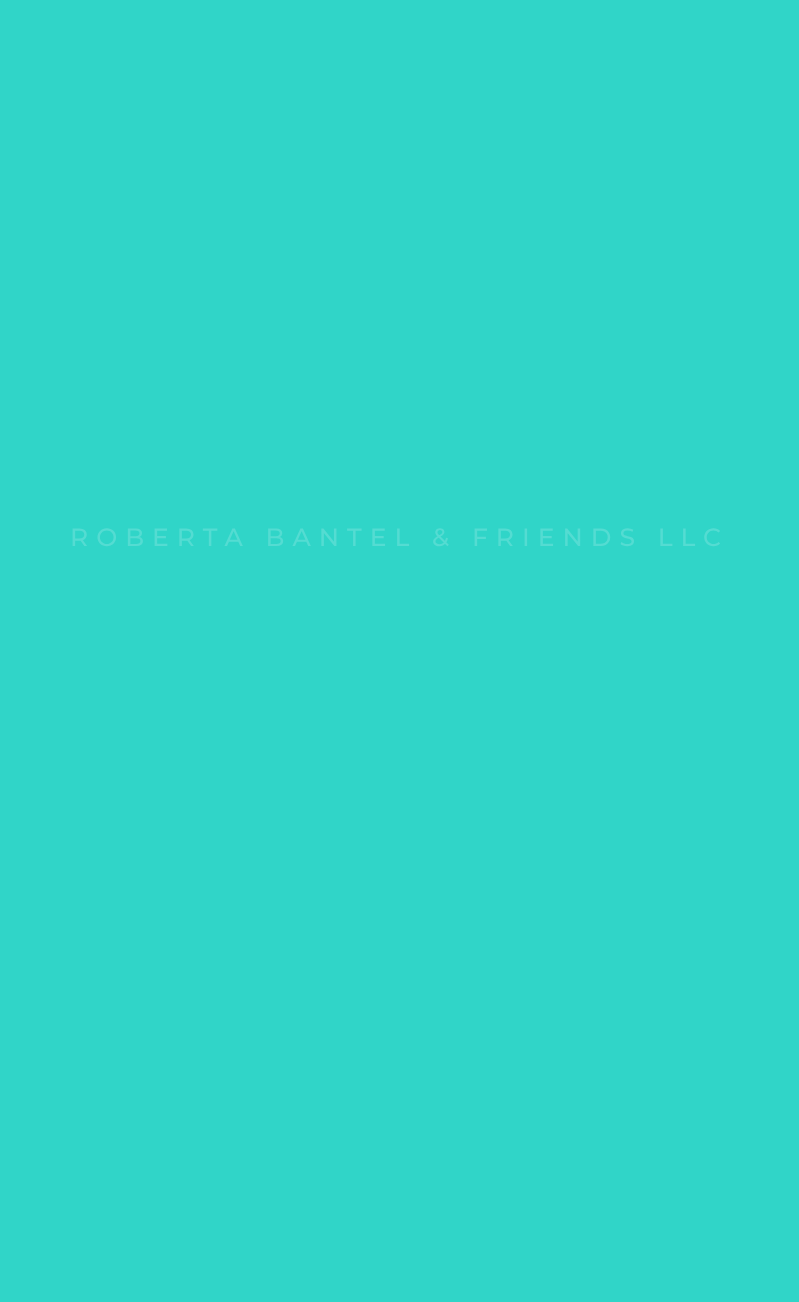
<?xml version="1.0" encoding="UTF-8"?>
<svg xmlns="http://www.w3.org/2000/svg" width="799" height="1302">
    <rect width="100%" height="100%" fill="#30D5C8"/>
    <text x="70" y="546" font-family="Montserrat" font-size="25" font-weight="500" letter-spacing="8" fill="#54DCD2">ROBERTA BANTEL &amp; FRIENDS LLC</text>
</svg>
